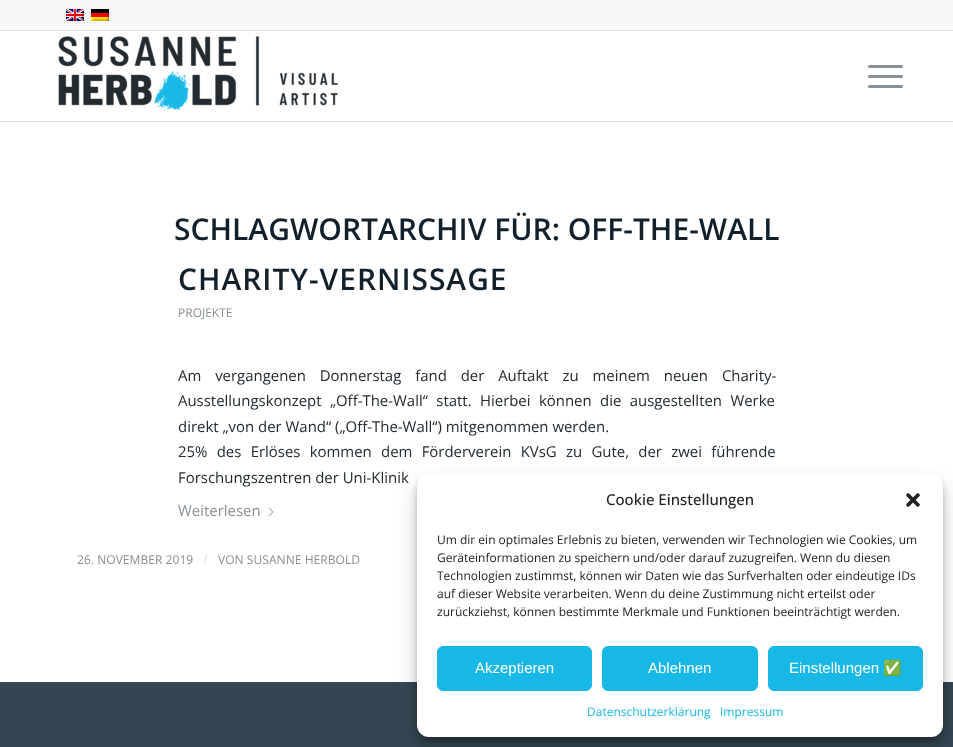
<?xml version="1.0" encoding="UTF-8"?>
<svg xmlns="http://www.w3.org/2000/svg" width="953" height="747">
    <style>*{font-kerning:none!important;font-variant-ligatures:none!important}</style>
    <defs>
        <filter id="blur1" x="-50%" y="-200%" width="200%" height="500%"><feGaussianBlur stdDeviation="3"/></filter>
        <filter id="blur2" x="-50%" y="-200%" width="200%" height="500%"><feGaussianBlur stdDeviation="10"/></filter>
    </defs>
    <rect width="100%" height="100%" fill="#FFFFFF"/>
    <rect x="0" y="0" width="953" height="30" fill="#F8F8F8"/>
    <rect x="0" y="30" width="953" height="1" fill="#E1E1E1"/>
    <image x="66" y="9" width="18" height="12" href="img_01.png"/>
    <image x="91" y="9" width="18" height="12" href="img_02.png"/>
    <rect x="0" y="121" width="953" height="1" fill="#E1E1E1"/>
    <image x="58" y="36" width="280" height="75" href="img_03.png"/>
    <rect x="868" y="75" width="35" height="3" rx="1.5" fill="#889095"/>
    <rect x="868" y="65" width="35" height="3" rx="1.5" fill="#889095"/>
    <rect x="868" y="85" width="35" height="3" rx="1.5" fill="#889095"/>
    <text x="174" y="240" font-family="Open Sans" font-size="30" font-weight="600" fill="#11202A">SCHLAGWORTARCHIV FÜR: OFF-THE-WALL</text>
    <text x="178" y="290" font-family="Open Sans" font-size="29.9" font-weight="600" letter-spacing="1" fill="#11202A">CHARITY-VERNISSAGE</text>
    <text x="178" y="317" font-family="Open Sans" font-size="12" fill="#889095">PROJEKTE</text>
    <text font-family="Open Sans" font-size="14.95" fill="#232B30">
        <tspan x="178" y="381" word-spacing="10">Am vergangenen Donnerstag fand der Auftakt zu meinem neuen Charity-</tspan>
        <tspan x="178" y="406" word-spacing="4.5">Ausstellungskonzept „Off-The-Wall“ statt. Hierbei können die ausgestellten Werke</tspan>
        <tspan x="178" y="432">direkt „von der Wand“ („Off-The-Wall“) mitgenommen werden.</tspan>
        <tspan x="178" y="457" word-spacing="5.4">25% des Erlöses kommen dem Förderverein KVsG zu Gute, der zwei führende</tspan>
        <tspan x="178" y="483">Forschungszentren der Uni-Klinik</tspan>
    </text>
    <text x="178" y="516" font-family="Open Sans" font-size="14.95" fill="#889095">Weiterlesen</text>
    <image x="268" y="507" width="6" height="10" href="img_04.png"/>
    <text x="77" y="564" font-family="Open Sans" font-size="12.1" fill="#889095">26. NOVEMBER 2019</text>
    <text x="203" y="564" font-family="Open Sans" font-size="13" fill="#DBDEDF">/</text>
    <text x="218" y="564" font-family="Open Sans" font-size="12.1" fill="#889095">VON SUSANNE HERBOLD</text>
    <rect x="0" y="683" width="953" height="64" fill="#344652"/>
    <rect x="0" y="682" width="953" height="1" fill="#384852"/>
    <rect x="417" y="480" width="526" height="263" rx="12" fill="#000000" fill-opacity="0.23" filter="url(#blur1)"/>
    <rect x="417" y="484" width="526" height="263" rx="12" fill="#000000" fill-opacity="0.19" filter="url(#blur2)"/>
    <rect x="417" y="474" width="526" height="263" rx="12" fill="#FFFFFF"/>
    <text x="606" y="505" font-family="Open Sans" font-size="15" font-weight="500" fill="#222222">Cookie Einstellungen</text>
    <image x="906" y="493" width="14" height="14" href="img_05.png"/>
    <text font-family="Open Sans" font-size="12" fill="#222222">
        <tspan x="437" y="544">Um dir ein optimales Erlebnis zu bieten, verwenden wir Technologien wie Cookies, um</tspan>
        <tspan x="437" y="562">Geräteinformationen zu speichern und/oder darauf zuzugreifen. Wenn du diesen</tspan>
        <tspan x="437" y="580">Technologien zustimmst, können wir Daten wie das Surfverhalten oder eindeutige IDs</tspan>
        <tspan x="437" y="598">auf dieser Website verarbeiten. Wenn du deine Zustimmung nicht erteilst oder</tspan>
        <tspan x="437" y="616">zurückziehst, können bestimmte Merkmale und Funktionen beeinträchtigt werden.</tspan>
    </text>
    <rect x="437.5" y="646.5" width="154" height="44" rx="5.5" fill="#17B8E6" stroke="#17B8E6"/>
    <text x="475" y="673" font-family="Liberation Sans" font-size="15" fill="#FFFFFF">Akzeptieren</text>
    <rect x="602.5" y="646.5" width="155" height="44" rx="5.5" fill="#17B8E6" stroke="#17B8E6"/>
    <text x="648" y="673" font-family="Liberation Sans" font-size="15" fill="#FFFFFF">Ablehnen</text>
    <rect x="768.5" y="646.5" width="154" height="44" rx="5.5" fill="#17B8E6" stroke="#17B8E6"/>
    <text x="789" y="673" font-family="Liberation Sans" font-size="15" fill="#FFFFFF">Einstellungen</text>
    <text x="883" y="673" font-family="Noto Color Emoji" font-size="15" fill="#FFFFFF">✅</text>
    <text x="587" y="716" font-family="Open Sans" font-size="12" fill="#17B8E6">Datenschutzerklärung</text>
    <text x="720" y="716" font-family="Open Sans" font-size="12" fill="#17B8E6">Impressum</text>
</svg>
